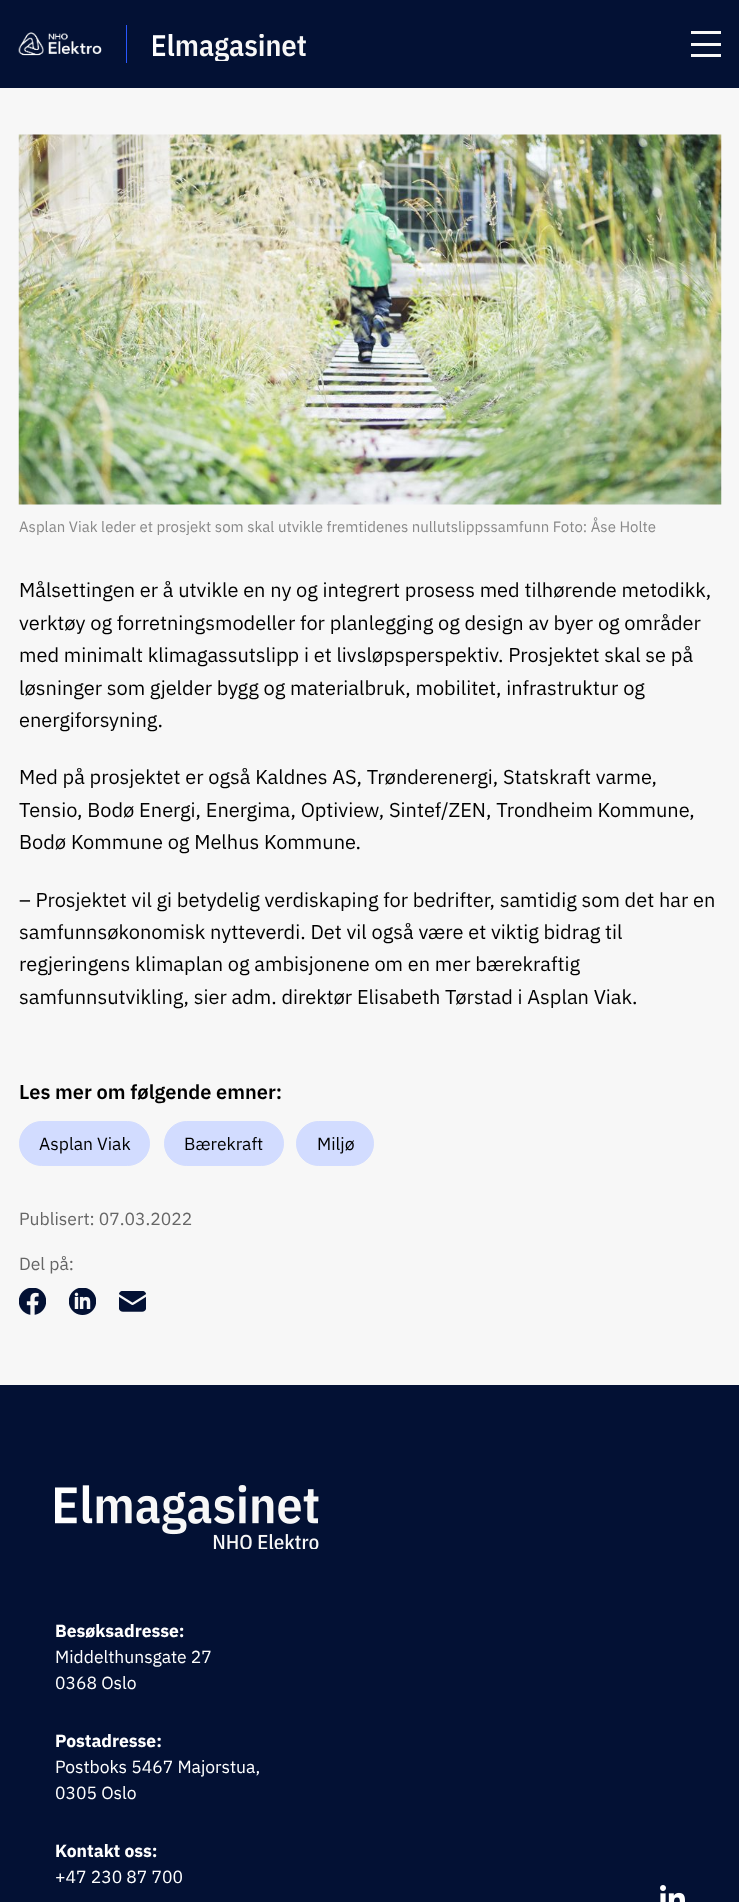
<?xml version="1.0" encoding="UTF-8"?>
<svg xmlns="http://www.w3.org/2000/svg" width="739" height="1902">
    <rect width="100%" height="100%" fill="#F7F7F7"/>
    <rect x="0" y="0" width="739" height="88" fill="#031134"/>
    <image x="18" y="32" width="84" height="24" href="img_01.png"/>
    <rect x="126" y="25" width="1" height="38" fill="#2957FF"/>
    <image x="153" y="34" width="153" height="27" href="img_02.png"/>
    <rect x="691" y="31" width="30" height="3" fill="#F7F7F7"/>
    <rect x="691" y="43" width="30" height="3" fill="#F7F7F7"/>
    <rect x="691" y="54" width="30" height="3" fill="#F7F7F7"/>
    <image x="18" y="134" width="704" height="371" href="img_03.png"/>
    <text x="19" y="532" font-family="IBM Plex Sans" font-size="15" fill="#898989">Asplan Viak leder et prosjekt som skal utvikle fremtidenes nullutslippssamfunn Foto: Åse Holte</text>
    <text font-family="IBM Plex Sans" font-size="20" fill="#000000">
        <tspan x="19" y="597">Målsettingen er å utvikle en ny og integrert prosess med tilhørende metodikk,</tspan>
        <tspan x="19" y="630">verktøy og forretningsmodeller for planlegging og design av byer og områder</tspan>
        <tspan x="19" y="662">med minimalt klimagassutslipp i et livsløpsperspektiv. Prosjektet skal se på</tspan>
        <tspan x="19" y="695">løsninger som gjelder bygg og materialbruk, mobilitet, infrastruktur og</tspan>
        <tspan x="19" y="727">energiforsyning.</tspan>
    </text>
    <text font-family="IBM Plex Sans" font-size="20" fill="#000000">
        <tspan x="19" y="784">Med på prosjektet er også Kaldnes AS, Trønderenergi, Statskraft varme,</tspan>
        <tspan x="19" y="817">Tensio, Bodø Energi, Energima, Optiview, Sintef/ZEN, Trondheim Kommune,</tspan>
        <tspan x="19" y="849">Bodø Kommune og Melhus Kommune.</tspan>
    </text>
    <text font-family="IBM Plex Sans" font-size="20" fill="#000000">
        <tspan x="19" y="907">– Prosjektet vil gi betydelig verdiskaping for bedrifter, samtidig som det har en</tspan>
        <tspan x="19" y="939">samfunnsøkonomisk nytteverdi. Det vil også være et viktig bidrag til</tspan>
        <tspan x="19" y="971">regjeringens klimaplan og ambisjonene om en mer bærekraftig</tspan>
        <tspan x="19" y="1004">samfunnsutvikling, sier adm. direktør Elisabeth Tørstad i Asplan Viak.</tspan>
    </text>
    <text x="19" y="1099" font-family="IBM Plex Sans" font-size="20" font-weight="600" fill="#000000">Les mer om følgende emner:</text>
    <rect x="19.5" y="1121.5" width="130" height="44" rx="22" fill="#D2DCFF" stroke="#D2DCFF"/>
    <text x="39" y="1150" font-family="IBM Plex Sans" font-size="17.5" fill="#000000">Asplan Viak</text>
    <rect x="164.5" y="1121.5" width="119" height="44" rx="22" fill="#D2DCFF" stroke="#D2DCFF"/>
    <text x="184" y="1150" font-family="IBM Plex Sans" font-size="17.5" fill="#000000">Bærekraft</text>
    <rect x="296.5" y="1121.5" width="77" height="44" rx="22" fill="#D2DCFF" stroke="#D2DCFF"/>
    <text x="317" y="1150" font-family="IBM Plex Sans" font-size="17.5" fill="#000000">Miljø</text>
    <text x="19" y="1225" font-family="IBM Plex Sans" font-size="17.5" fill="#666666">Publisert: 07.03.2022</text>
    <text x="19" y="1270" font-family="IBM Plex Sans" font-size="17.5" fill="#666666">Del på:</text>
    <image x="19" y="1288" width="27" height="27" href="img_04.png"/>
    <image x="69" y="1288" width="27" height="27" href="img_05.png"/>
    <image x="119" y="1291" width="27" height="21" href="img_06.png"/>
    <rect x="0" y="1385" width="739" height="517" fill="#031134"/>
    <image x="55" y="1485" width="264" height="64" href="img_07.png"/>
    <text x="55" y="1637" font-family="IBM Plex Sans" font-size="17.5" font-weight="700" fill="#FFFFFF">Besøksadresse:</text>
    <text font-family="IBM Plex Sans" font-size="17.5" fill="#FFFFFF">
        <tspan x="55" y="1663">Middelthunsgate 27</tspan>
        <tspan x="55" y="1689">0368 Oslo</tspan>
    </text>
    <text x="55" y="1747" font-family="IBM Plex Sans" font-size="17.5" font-weight="700" fill="#FFFFFF">Postadresse:</text>
    <text font-family="IBM Plex Sans" font-size="17.5" fill="#FFFFFF">
        <tspan x="55" y="1773">Postboks 5467 Majorstua,</tspan>
        <tspan x="55" y="1799">0305 Oslo</tspan>
    </text>
    <text x="55" y="1857" font-family="IBM Plex Sans" font-size="17.5" font-weight="700" fill="#FFFFFF">Kontakt oss:</text>
    <text x="55" y="1883" font-family="IBM Plex Sans" font-size="17.5" fill="#FFFFFF">+47 230 87 700</text>
    <image x="660" y="1885" width="25" height="17" href="img_08.png"/>
</svg>
